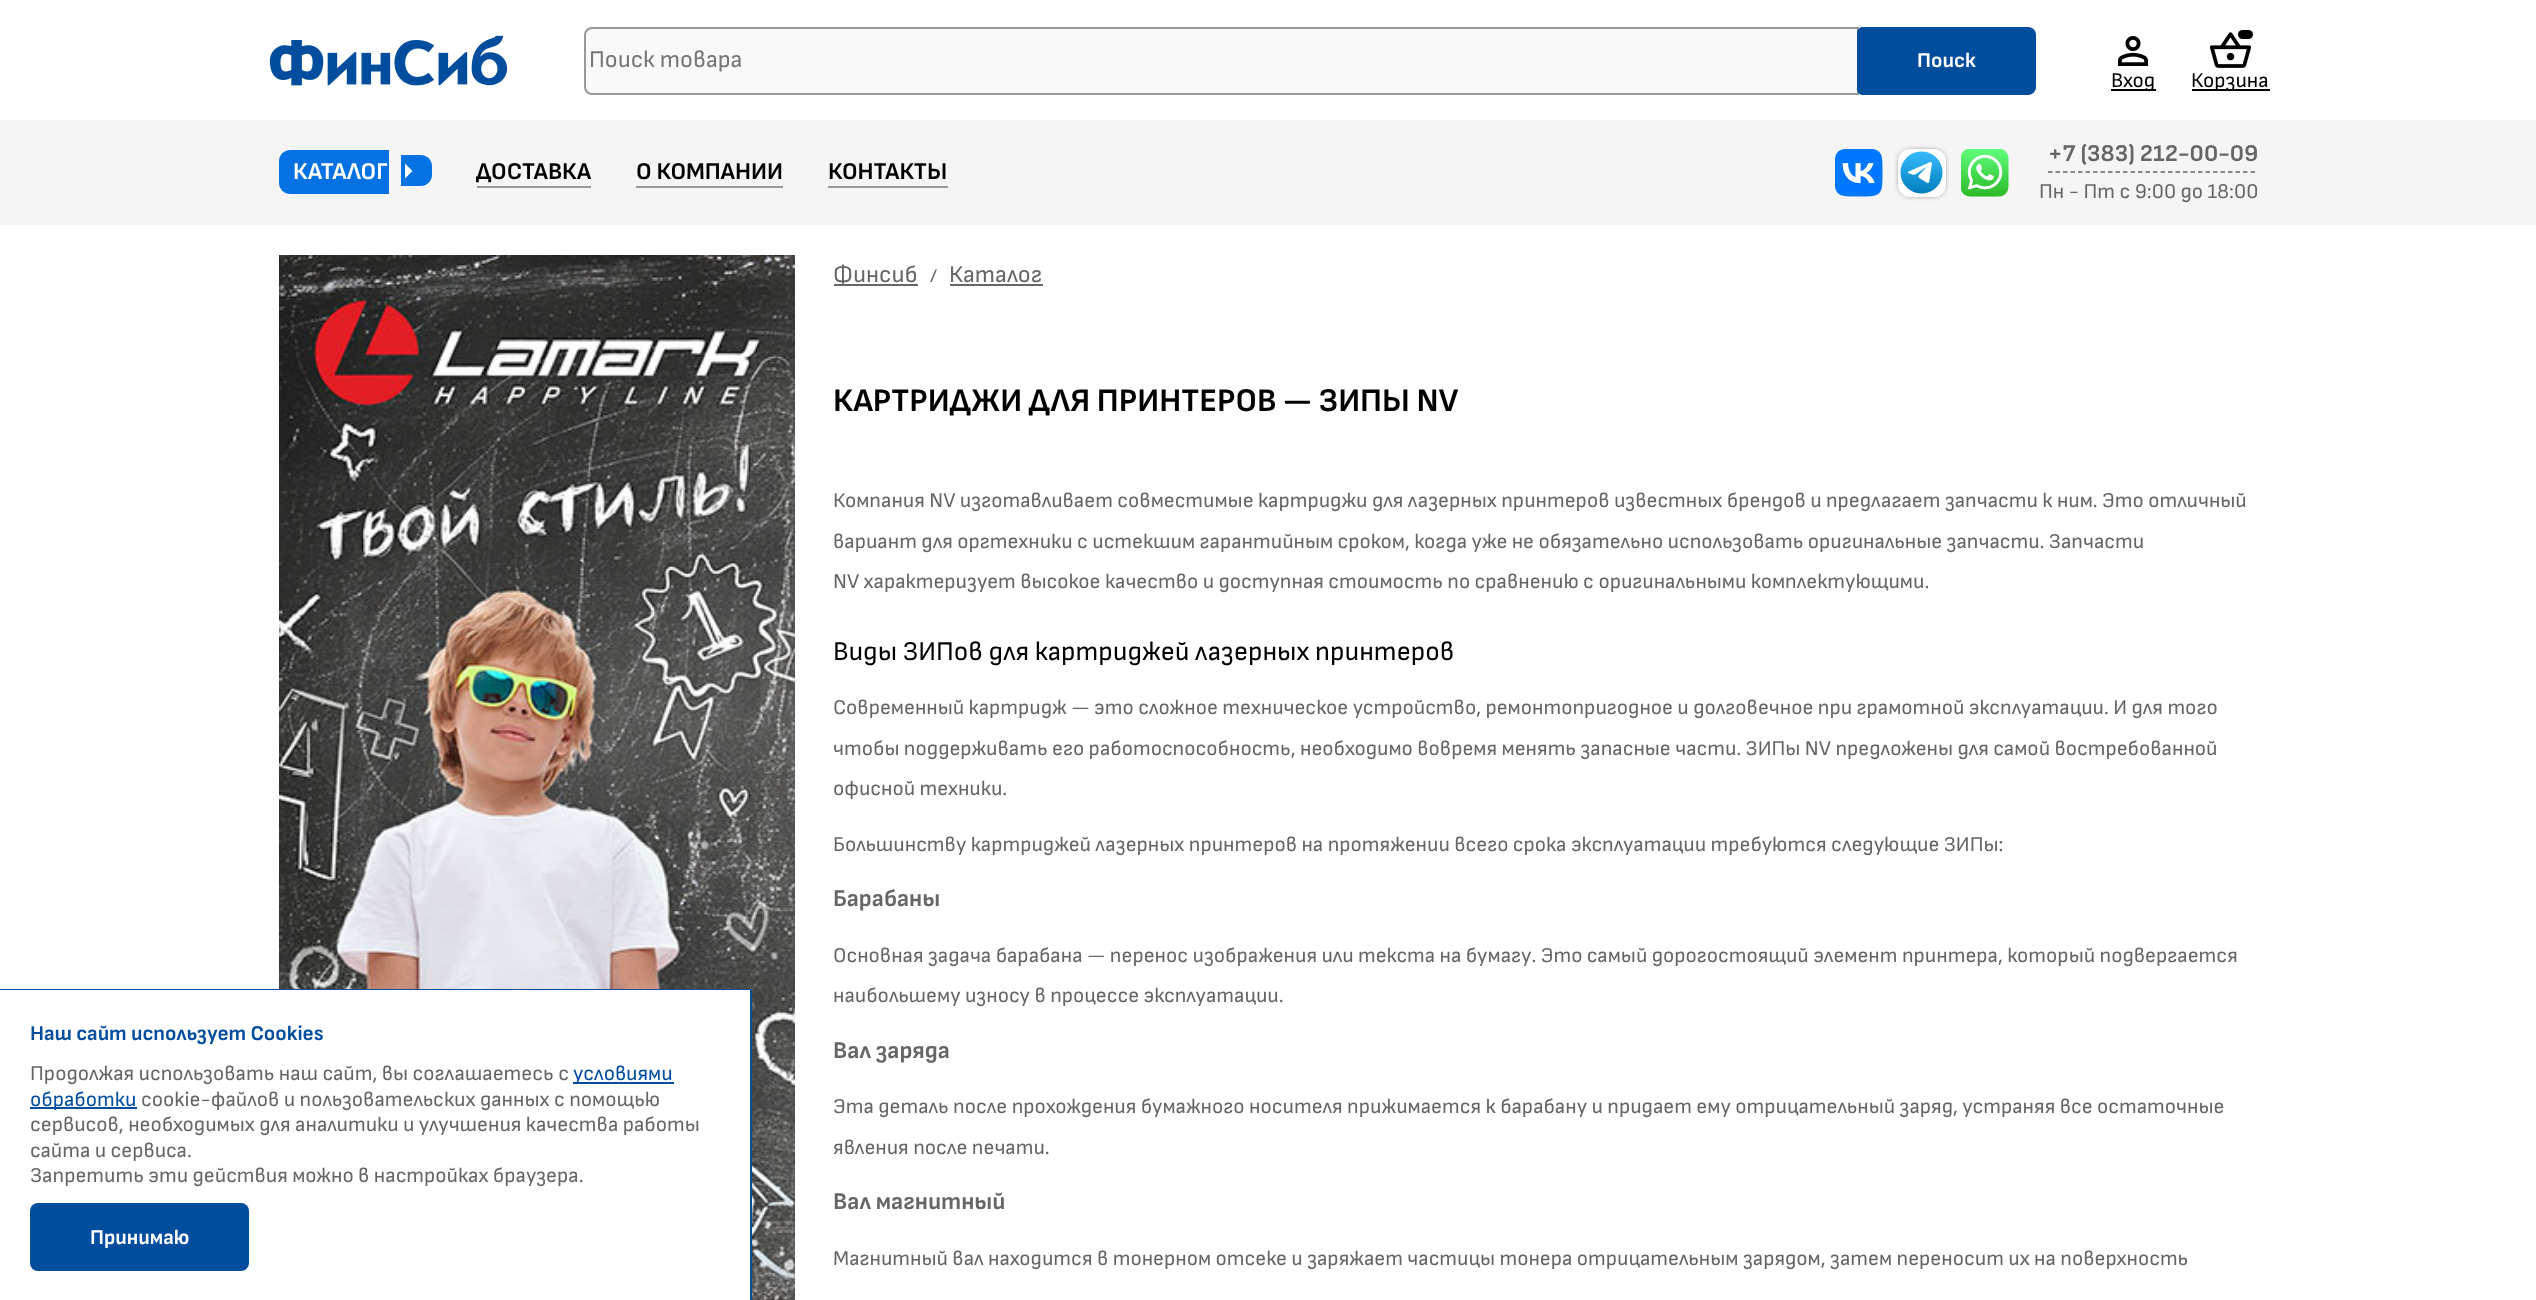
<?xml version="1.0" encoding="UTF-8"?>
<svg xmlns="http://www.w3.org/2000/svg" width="2536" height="1300">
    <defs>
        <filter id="blur1" x="-50%" y="-200%" width="200%" height="500%"><feGaussianBlur stdDeviation="3"/></filter>
    </defs>
    <rect width="100%" height="100%" fill="#FFFFFF"/>
    <image x="269" y="35" width="239" height="51" href="img_01.png"/>
    <path d="M 592 28 H 1858 V 94 H 592 C 588 94 585 91 585 87 V 35 C 585 31 588 28 592 28 Z" fill="#F9F9F9" stroke="#999999" stroke-width="2"/>
    <text x="589" y="67" font-family="Sofia Sans" font-size="24" fill="#757575">Поиск товара</text>
    <path d="M 1863 27 H 2028 C 2032.5 27 2036 30.5 2036 35 V 87 C 2036 91.5 2032.5 95 2028 95 H 1863 C 1859.5 95 1857 92.5 1857 89 V 33 C 1857 29.5 1859.5 27 1863 27 Z" fill="#004D9D"/>
    <text x="1917" y="67" font-family="Sofia Sans" font-size="21" font-weight="700" fill="#FFFFFF">Поиск</text>
    <image x="2118" y="36" width="30" height="30" href="img_02.png"/>
    <rect x="2111" y="89" width="45" height="2" fill="#000000"/>
    <text x="2111" y="87" font-family="Sofia Sans" font-size="21" fill="#000000">Вход</text>
    <image x="2209" y="32" width="43" height="36" href="img_03.png"/>
    <rect x="2238" y="30" width="15" height="9" rx="4.5" fill="#000000"/>
    <rect x="2192" y="89" width="78" height="2" fill="#000000"/>
    <text x="2191" y="87" font-family="Sofia Sans" font-size="21" fill="#000000">Корзина</text>
    <rect x="0" y="120" width="2536" height="105" fill="#F5F5F5"/>
    <path d="M 290 150 H 389 V 194 H 290 C 284 194 279 189 279 183 V 161 C 279 155 284 150 290 150 Z" fill="#0572E3"/>
    <path d="M 401 155 H 421 C 427 155 432 160 432 166 V 175 C 432 181 427 186 421 186 H 401 Z" fill="#0572E3"/>
    <text x="293" y="179" font-family="Sofia Sans" font-size="24" font-weight="700" fill="#FFFFFF">КАТАЛОГ</text>
    <path d="M 405 178.5 V 163.5 L 412.5 171 Z" fill="#FFFFFF"/>
    <text x="476" y="179" font-family="Sofia Sans" font-size="24" font-weight="700" fill="#000000">ДОСТАВКА</text>
    <rect x="477" y="186" width="114" height="2" fill="#999999"/>
    <text x="636" y="179" font-family="Sofia Sans" font-size="24" font-weight="700" fill="#000000">О КОМПАНИИ</text>
    <rect x="636" y="186" width="147" height="2" fill="#999999"/>
    <text x="828" y="179" font-family="Sofia Sans" font-size="24" font-weight="700" fill="#000000">КОНТАКТЫ</text>
    <rect x="828" y="186" width="120" height="2" fill="#999999"/>
    <image x="1835" y="149" width="48" height="48" href="img_04.png"/>
    <rect x="1901" y="152" width="42" height="42" rx="9" fill="#000000" filter="url(#blur1)"/>
    <rect x="1898" y="149" width="48" height="48" rx="12" fill="#FFFFFF"/>
    <image x="1900" y="151" width="43" height="43" href="img_05.png"/>
    <image x="1961" y="149" width="48" height="48" href="img_06.png"/>
    <text x="2048" y="161" font-family="Sofia Sans" font-size="24" font-weight="700" fill="#666666">+7 (383) 212-00-09</text>
    <path d="M 2048 172 H 2258" fill="none" stroke="#666666" stroke-width="1.5" stroke-dasharray="4.5 3"/>
    <text x="2039" y="198" font-family="Sofia Sans" font-size="21" fill="#666666">Пн - Пт с 9:00 до 18:00</text>
    <image x="279" y="255" width="516" height="1045" href="img_07.png"/>
    <text x="833" y="282" font-family="Sofia Sans" font-size="24" fill="#666666">Финсиб</text>
    <rect x="834" y="284" width="84" height="2" fill="#666666"/>
    <text x="930" y="282" font-family="Sofia Sans" font-size="19" fill="#666666">/</text>
    <text x="949" y="282" font-family="Sofia Sans" font-size="24" fill="#666666">Каталог</text>
    <rect x="950" y="284" width="93" height="2" fill="#666666"/>
    <text x="833" y="411" font-family="Sofia Sans" font-size="33" font-weight="700" fill="#000000">КАРТРИДЖИ ДЛЯ ПРИНТЕРОВ — ЗИПЫ NV</text>
    <text font-family="Sofia Sans" font-size="21" fill="#666666">
        <tspan x="833" y="507">Компания NV изготавливает совместимые картриджи для лазерных принтеров известных брендов и предлагает запчасти к ним. Это отличный</tspan>
        <tspan x="833" y="548">вариант для оргтехники с истекшим гарантийным сроком, когда уже не обязательно использовать оригинальные запчасти. Запчасти</tspan>
        <tspan x="833" y="588">NV характеризует высокое качество и доступная стоимость по сравнению с оригинальными комплектующими.</tspan>
    </text>
    <text x="833" y="660" font-family="Sofia Sans" font-size="27" fill="#000000">Виды ЗИПов для картриджей лазерных принтеров</text>
    <text font-family="Sofia Sans" font-size="21" fill="#666666">
        <tspan x="833" y="714">Современный картридж — это сложное техническое устройство, ремонтопригодное и долговечное при грамотной эксплуатации. И для того</tspan>
        <tspan x="833" y="755">чтобы поддерживать его работоспособность, необходимо вовремя менять запасные части. ЗИПы NV предложены для самой востребованной</tspan>
        <tspan x="833" y="795">офисной техники.</tspan>
    </text>
    <text x="833" y="851" font-family="Sofia Sans" font-size="21" fill="#666666">Большинству картриджей лазерных принтеров на протяжении всего срока эксплуатации требуются следующие ЗИПы:</text>
    <text x="833" y="906" font-family="Sofia Sans" font-size="24" font-weight="700" fill="#666666">Барабаны</text>
    <text font-family="Sofia Sans" font-size="21" fill="#666666">
        <tspan x="833" y="962">Основная задача барабана — перенос изображения или текста на бумагу. Это самый дорогостоящий элемент принтера, который подвергается</tspan>
        <tspan x="833" y="1002">наибольшему износу в процессе эксплуатации.</tspan>
    </text>
    <text x="833" y="1058" font-family="Sofia Sans" font-size="24" font-weight="700" fill="#666666">Вал заряда</text>
    <text font-family="Sofia Sans" font-size="21" fill="#666666">
        <tspan x="833" y="1113">Эта деталь после прохождения бумажного носителя прижимается к барабану и придает ему отрицательный заряд, устраняя все остаточные</tspan>
        <tspan x="833" y="1154">явления после печати.</tspan>
    </text>
    <text x="833" y="1209" font-family="Sofia Sans" font-size="24" font-weight="700" fill="#666666">Вал магнитный</text>
    <text x="833" y="1265" font-family="Sofia Sans" font-size="21" fill="#666666">Магнитный вал находится в тонерном отсеке и заряжает частицы тонера отрицательным зарядом, затем переносит их на поверхность</text>
    <rect x="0" y="990" width="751" height="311" fill="none" stroke="#004D9D" stroke-width="2"/>
    <rect x="0" y="990" width="750" height="310" fill="#FFFFFF"/>
    <text x="30" y="1040" font-family="Sofia Sans" font-size="21" font-weight="700" fill="#004D9D">Наш сайт использует Cookies</text>
    <text x="30" y="1080" font-family="Sofia Sans" font-size="21" fill="#666666">Продолжая использовать наш сайт, вы соглашаетесь с</text>
    <rect x="573" y="1082" width="101" height="2" fill="#004D9D"/>
    <text x="573" y="1080" font-family="Sofia Sans" font-size="21" fill="#004D9D">условиями</text>
    <rect x="30" y="1107" width="107" height="2" fill="#004D9D"/>
    <text x="30" y="1106" font-family="Sofia Sans" font-size="21" fill="#004D9D">обработки</text>
    <text x="141" y="1106" font-family="Sofia Sans" font-size="21" fill="#666666">cookie-файлов и пользовательских данных с помощью</text>
    <text font-family="Sofia Sans" font-size="21" fill="#666666">
        <tspan x="30" y="1131">сервисов, необходимых для аналитики и улучшения качества работы</tspan>
        <tspan x="30" y="1157">сайта и сервиса.</tspan>
        <tspan x="30" y="1182">Запретить эти действия можно в настройках браузера.</tspan>
    </text>
    <rect x="30" y="1203" width="219" height="68" rx="8" fill="#004D9D"/>
    <text x="90" y="1244" font-family="Sofia Sans" font-size="21" font-weight="700" fill="#FFFFFF">Принимаю</text>
</svg>
